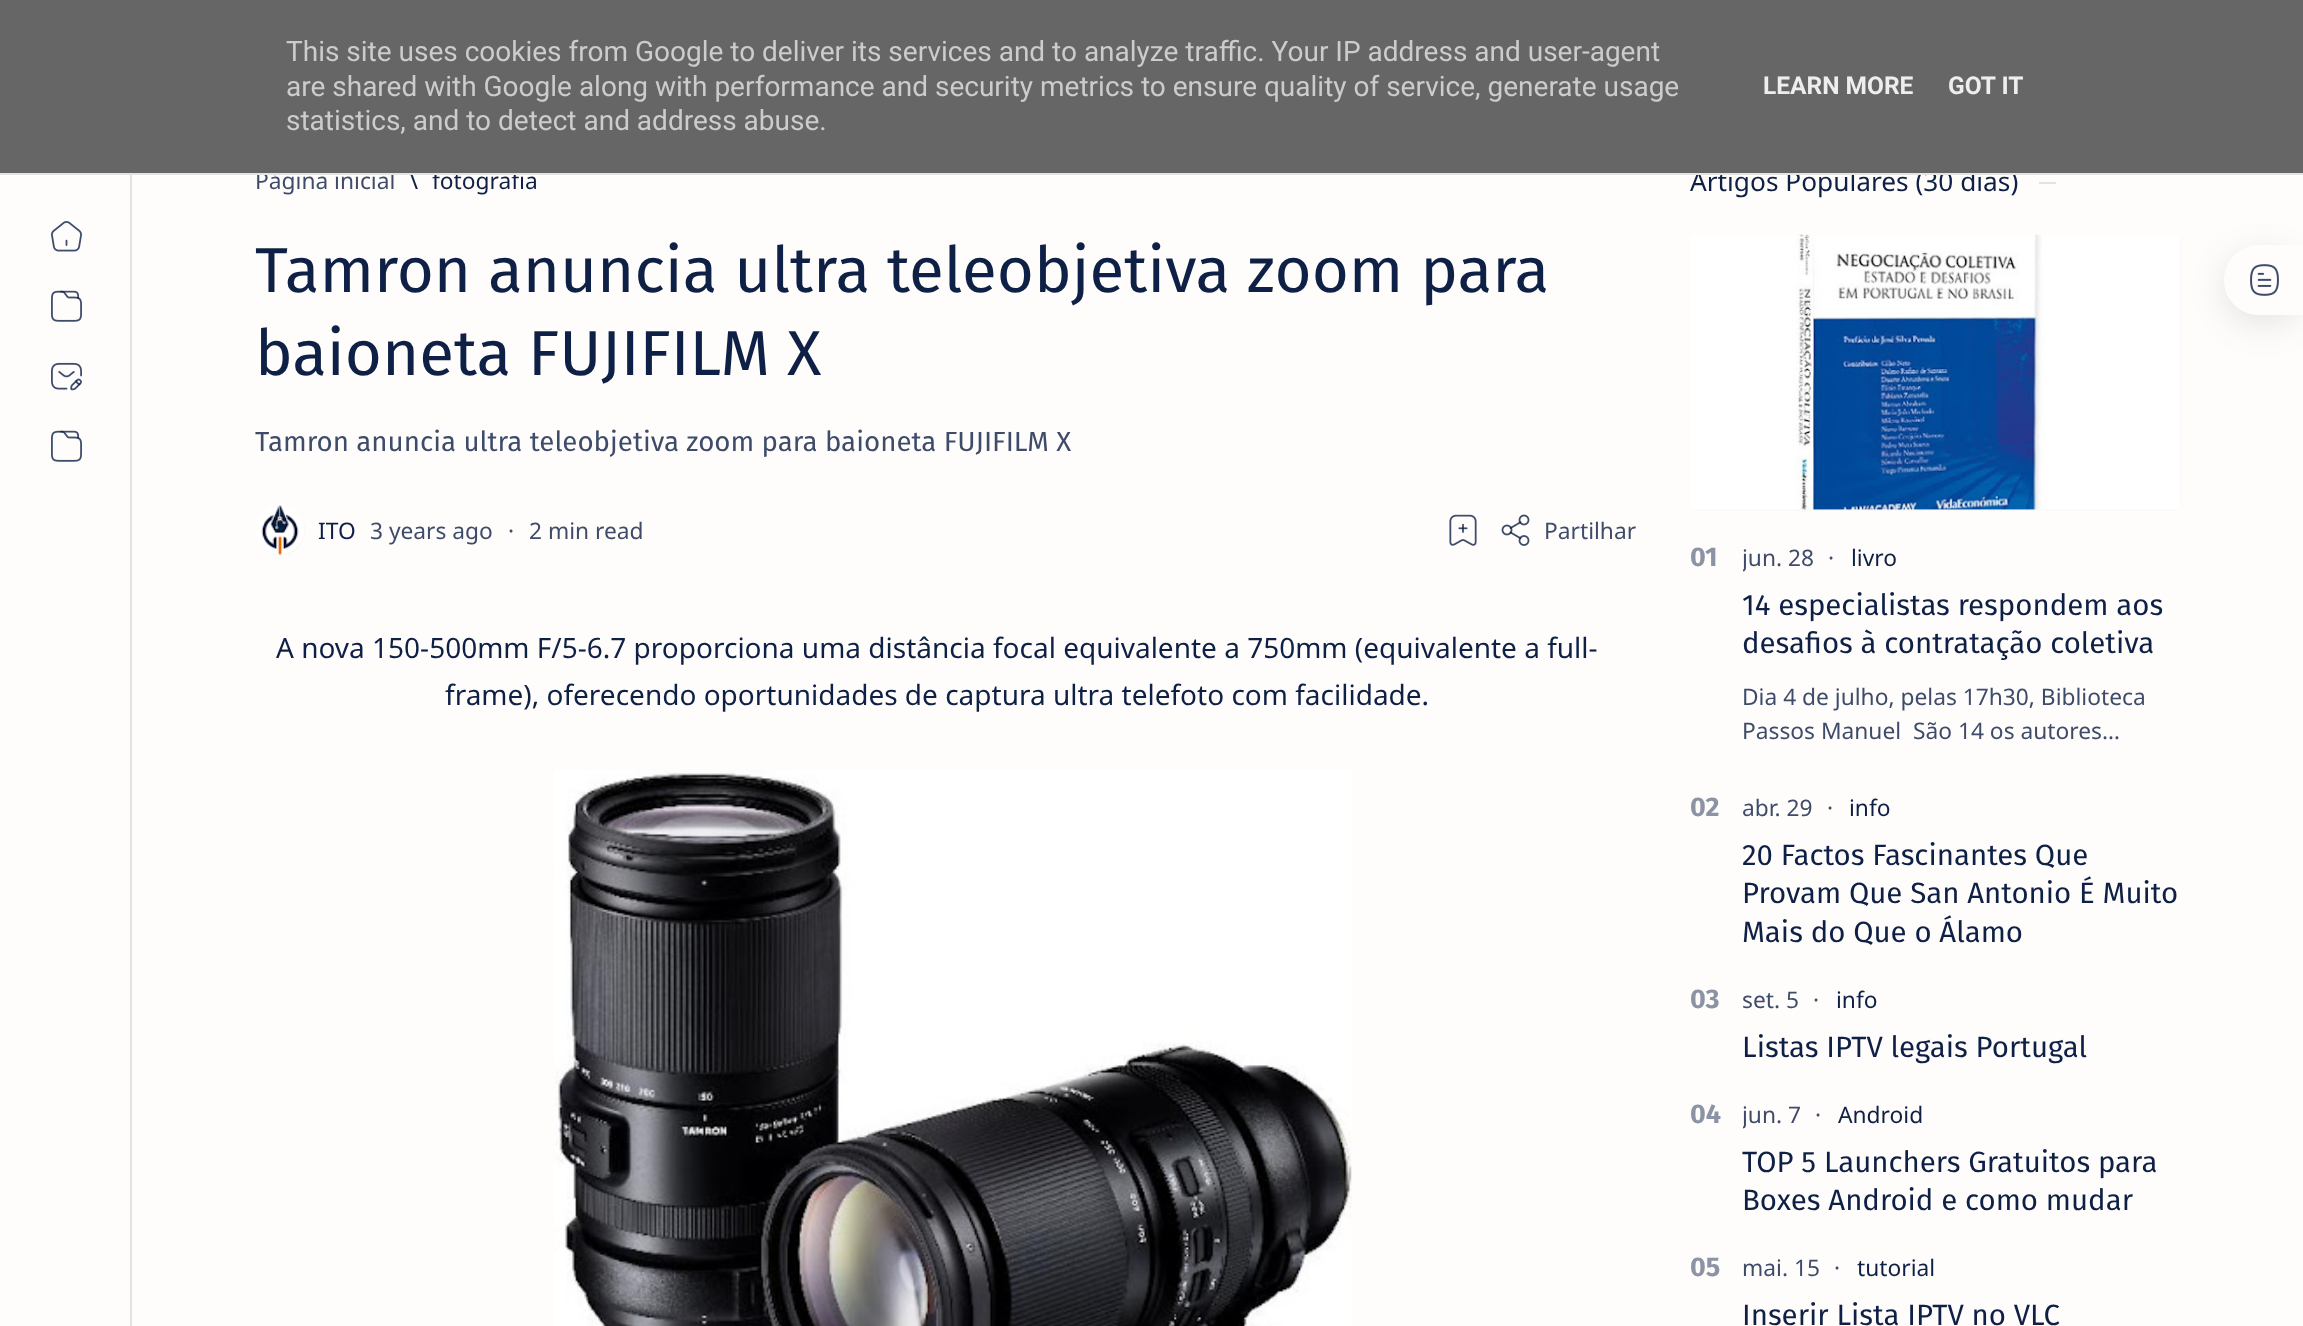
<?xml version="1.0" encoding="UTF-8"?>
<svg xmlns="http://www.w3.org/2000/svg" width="2303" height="1326">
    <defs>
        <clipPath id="clip1"><rect x="1743" y="543" width="72" height="31"/></clipPath>
        <clipPath id="clip2"><rect x="1743" y="1099" width="58" height="32"/></clipPath>
        <filter id="blur1" x="-50%" y="-200%" width="200%" height="500%"><feGaussianBlur stdDeviation="17.5"/></filter>
    </defs>
    <rect width="100%" height="100%" fill="#FFFDFC"/>
    <text x="255" y="189" font-family="Noto Sans" font-size="22.75" fill="#3E4C6A">Página inicial</text>
    <text x="409" y="189" font-family="Noto Sans" font-size="24.5" fill="#0E2045">\</text>
    <text x="432" y="189" font-family="Noto Sans" font-size="22.75" fill="#0E2045">fotografia</text>
    <text x="1690" y="191" font-family="Noto Sans" font-size="26.25" fill="#0E2045">Artigos Populares (30 dias)</text>
    <rect x="0" y="0" width="2303" height="173" fill="#666666"/>
    <text font-family="Roboto" font-size="28" fill="#CCCCCC">
        <tspan x="286" y="61">This site uses cookies from Google to deliver its services and to analyze traffic. Your IP address and user-agent</tspan>
        <tspan x="286" y="96">are shared with Google along with performance and security metrics to ensure quality of service, generate usage</tspan>
        <tspan x="286" y="130">statistics, and to detect and address abuse.</tspan>
    </text>
    <text x="1763" y="94" font-family="Roboto" font-size="24.5" font-weight="700" fill="#EEEEEE">LEARN MORE</text>
    <text x="1948" y="94" font-family="Roboto" font-size="24.5" font-weight="700" fill="#EEEEEE">GOT IT</text>
    <image x="51" y="221" width="31" height="31" href="img_01.png"/>
    <image x="51" y="290" width="31" height="32" href="img_02.png"/>
    <image x="51" y="362" width="31" height="29" href="img_03.png"/>
    <image x="51" y="430" width="31" height="32" href="img_02.png"/>
    <rect x="130" y="175" width="2" height="1151" fill="#E4E3E1"/>
    <text font-family="Fira Sans" font-size="63.7" fill="#0E2045">
        <tspan x="255" y="292">Tamron anuncia ultra teleobjetiva zoom para</tspan>
        <tspan x="255" y="375">baioneta FUJIFILM X</tspan>
    </text>
    <text x="255" y="451" font-family="Fira Sans" font-size="27.7" fill="#3E4C6A">Tamron anuncia ultra teleobjetiva zoom para baioneta FUJIFILM X</text>
    <circle cx="280.5" cy="530.5" r="24.5" fill="#F5F3F2"/>
    <image x="256" y="505" width="49" height="50" href="img_04.png"/>
    <text x="318" y="539" font-family="Noto Sans" font-size="22.75" fill="#0E2045">ITO</text>
    <text x="370" y="539" font-family="Noto Sans" font-size="22.75" fill="#3E4C6A">3 years ago</text>
    <text x="508" y="539" font-family="Noto Sans" font-size="22.75" fill="#3E4C6A">·</text>
    <text x="529" y="539" font-family="Noto Sans" font-size="22.75" fill="#3E4C6A">2 min read</text>
    <image x="1449" y="514" width="28" height="32" href="img_05.png"/>
    <image x="1501" y="514" width="29" height="32" href="img_06.png"/>
    <text x="1544" y="539" font-family="Noto Sans" font-size="22.75" fill="#3E4C6A">Partilhar</text>
    <text x="276" y="658" font-family="Noto Sans" font-size="28" fill="#0E2045">A nova 150-500mm F/5-6.7 proporciona uma distância focal equivalente a 750mm (equivalente a full-</text>
    <text x="445" y="705" font-family="Noto Sans" font-size="28" fill="#0E2045">frame), oferecendo oportunidades de captura ultra telefoto com facilidade.</text>
    <image x="554" y="770" width="798" height="556" href="img_07.png"/>
    <rect x="2039" y="182" width="17" height="2" fill="#E4E3E1"/>
    <rect x="1691" y="235" width="490" height="276" rx="7" fill="#F9F9FB"/>
    <image x="1691" y="234" width="489" height="276" href="img_08.png"/>
    <text x="1690" y="566" font-family="Fira Sans" font-size="27" font-weight="700" fill="#8B93A4">0</text>
    <text x="1705" y="566" font-family="Fira Sans" font-size="27" font-weight="700" fill="#8B93A4">1</text>
    <g clip-path="url(#clip1)">
        <text x="1742" y="566" font-family="Noto Sans" font-size="22.75" fill="#3E4C6A">jun. 28</text>
    </g>
    <text x="1828" y="566" font-family="Noto Sans" font-size="22.75" fill="#3E4C6A">·</text>
    <text x="1851" y="566" font-family="Noto Sans" font-size="22.75" fill="#0E2045">livro</text>
    <text font-family="Fira Sans" font-size="29.4" fill="#0E2045">
        <tspan x="1742" y="615">14 especialistas respondem aos</tspan>
        <tspan x="1742" y="653">desafios à contratação coletiva</tspan>
    </text>
    <text font-family="Noto Sans" font-size="22.75" fill="#3E4C6A">
        <tspan x="1742" y="705">Dia 4 de julho, pelas 17h30, Biblioteca</tspan>
        <tspan x="1742" y="739">Passos Manuel</tspan>
    </text>
    <text x="1913" y="739" font-family="Noto Sans" font-size="22.75" fill="#3E4C6A">São 14 os autores…</text>
    <text x="1690" y="816" font-family="Fira Sans" font-size="27" font-weight="700" fill="#8B93A4">02</text>
    <text x="1742" y="816" font-family="Noto Sans" font-size="22.75" fill="#3E4C6A">abr. 29</text>
    <text x="1827" y="816" font-family="Noto Sans" font-size="22.75" fill="#3E4C6A">·</text>
    <text x="1849" y="816" font-family="Noto Sans" font-size="22.75" fill="#0E2045">info</text>
    <text font-family="Fira Sans" font-size="29.4" fill="#0E2045">
        <tspan x="1742" y="865">20 Factos Fascinantes Que</tspan>
        <tspan x="1742" y="903">Provam Que San Antonio É Muito</tspan>
        <tspan x="1742" y="942">Mais do Que o Álamo</tspan>
    </text>
    <text x="1690" y="1008" font-family="Fira Sans" font-size="27" font-weight="700" fill="#8B93A4">03</text>
    <text x="1742" y="1008" font-family="Noto Sans" font-size="22.75" fill="#3E4C6A">set. 5</text>
    <text x="1813" y="1008" font-family="Noto Sans" font-size="22.75" fill="#3E4C6A">·</text>
    <text x="1836" y="1008" font-family="Noto Sans" font-size="22.75" fill="#0E2045">info</text>
    <text x="1742" y="1057" font-family="Fira Sans" font-size="29.4" fill="#0E2045">Listas IPTV legais Portugal</text>
    <text x="1690" y="1123" font-family="Fira Sans" font-size="27" font-weight="700" fill="#8B93A4">04</text>
    <g clip-path="url(#clip2)">
        <text x="1742" y="1123" font-family="Noto Sans" font-size="22.75" fill="#3E4C6A">jun. 7</text>
    </g>
    <text x="1815" y="1123" font-family="Noto Sans" font-size="22.75" fill="#3E4C6A">·</text>
    <text x="1838" y="1123" font-family="Noto Sans" font-size="22.75" fill="#0E2045">Android</text>
    <text font-family="Fira Sans" font-size="29.4" fill="#0E2045">
        <tspan x="1742" y="1172">TOP 5 Launchers Gratuitos para</tspan>
        <tspan x="1742" y="1210">Boxes Android e como mudar</tspan>
    </text>
    <text x="1690" y="1276" font-family="Fira Sans" font-size="27" font-weight="700" fill="#8B93A4">05</text>
    <text x="1742" y="1276" font-family="Noto Sans" font-size="22.75" fill="#3E4C6A">mai. 15</text>
    <text x="1834" y="1276" font-family="Noto Sans" font-size="22.75" fill="#3E4C6A">·</text>
    <text x="1857" y="1276" font-family="Noto Sans" font-size="22.75" fill="#0E2045">tutorial</text>
    <text x="1742" y="1325" font-family="Fira Sans" font-size="29.4" fill="#0E2045">Inserir Lista IPTV no VLC</text>
    <rect x="2224" y="254" width="79" height="70" rx="35" fill="#000000" fill-opacity="0.1" filter="url(#blur1)"/>
    <path d="M 2259 245 H 2303 V 315 H 2259 C 2239.5 315 2224 299.5 2224 280 C 2224 260.5 2239.5 245 2259 245 Z" fill="#FFFDFC"/>
    <image x="2250" y="264" width="29" height="32" href="img_09.png"/>
    <rect x="0" y="173" width="2303" height="2" fill="#E4E3E1"/>
</svg>
